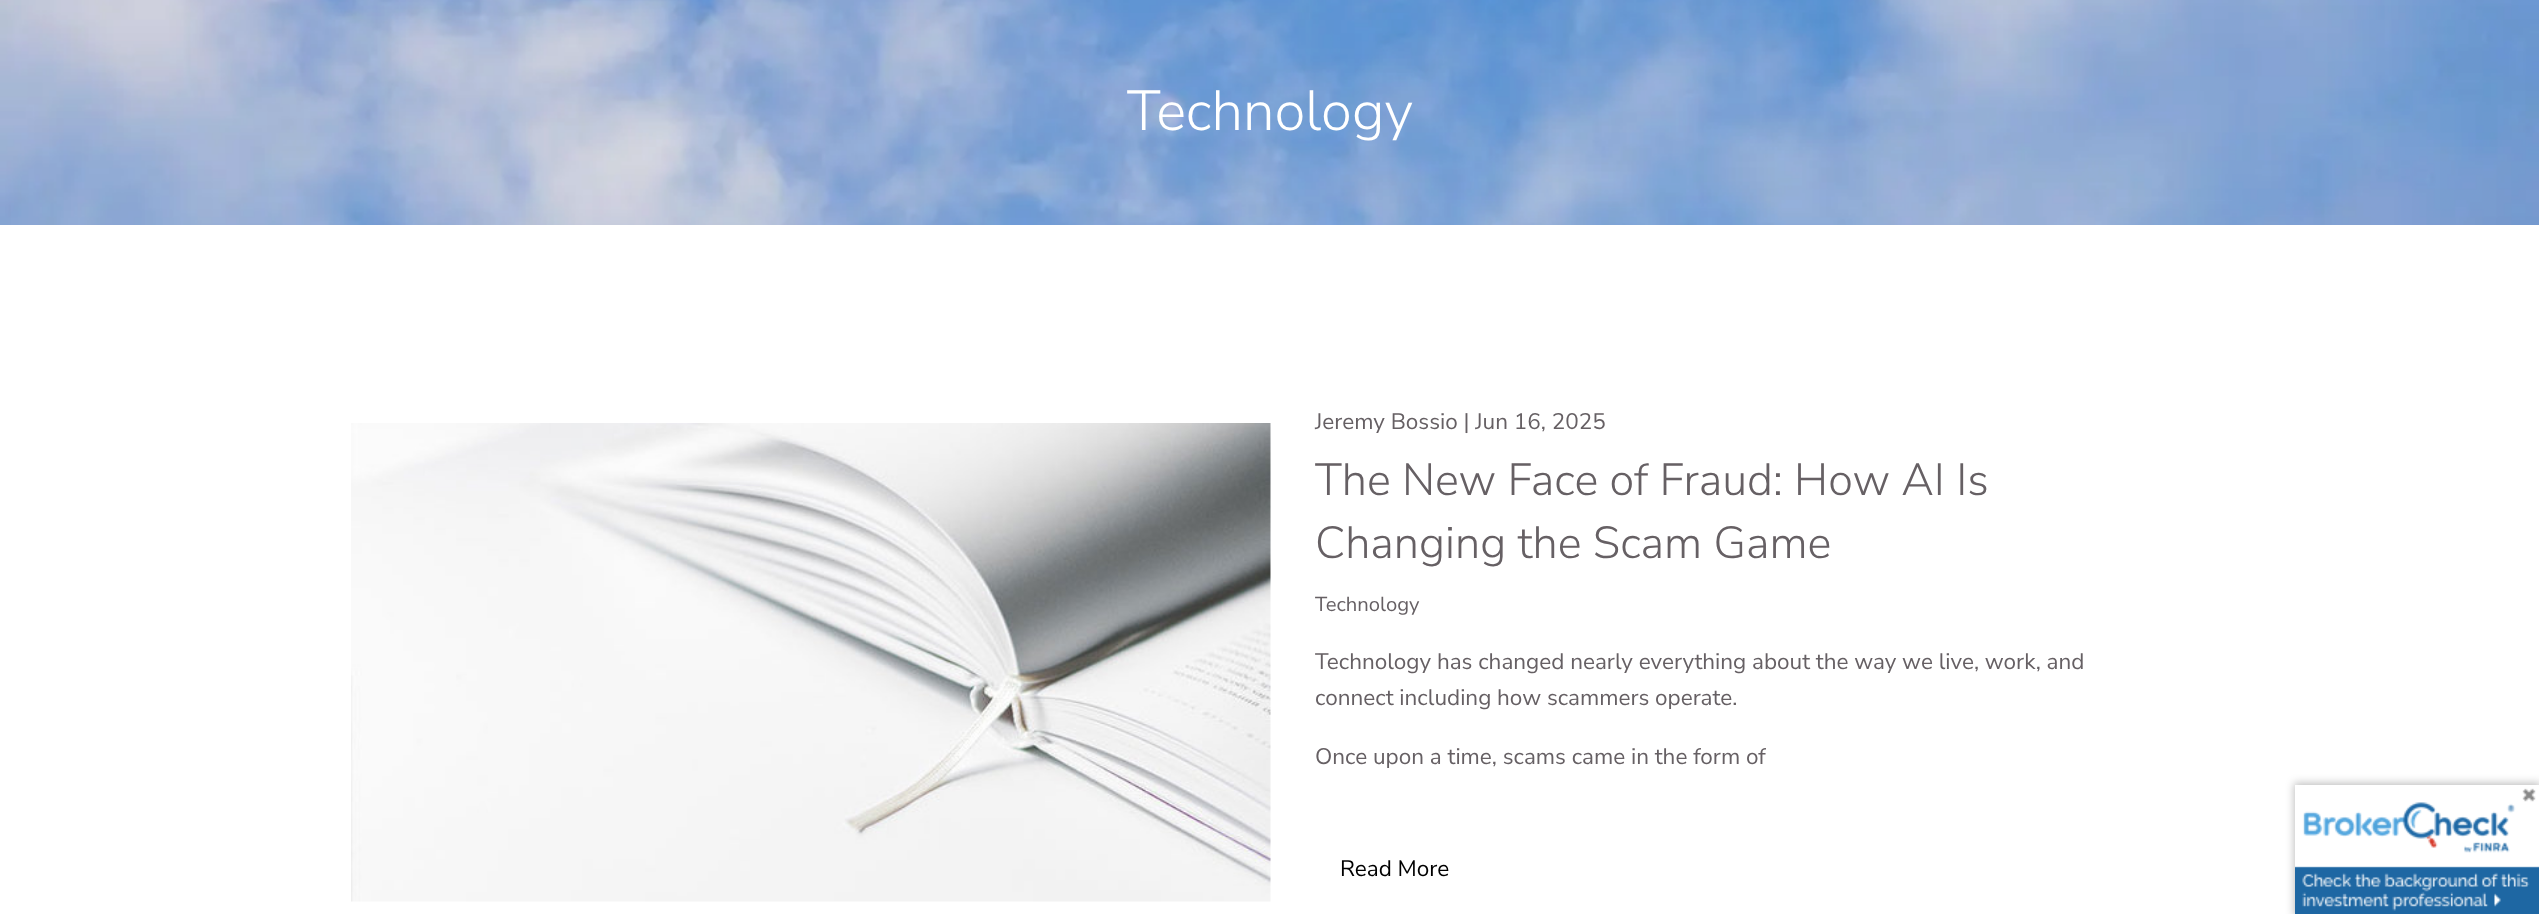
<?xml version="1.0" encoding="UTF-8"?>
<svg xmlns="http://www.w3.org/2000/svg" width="2539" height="914">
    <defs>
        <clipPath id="clip1"><path d="M 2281 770 H 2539 V 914 H 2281 Z M 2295 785 H 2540 V 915 H 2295 Z" clip-rule="evenodd"/></clipPath>
        <filter id="blur1" x="-50%" y="-200%" width="200%" height="500%"><feGaussianBlur stdDeviation="4"/></filter>
    </defs>
    <rect width="100%" height="100%" fill="#FFFFFF"/>
    <image x="0" y="0" width="2539" height="225" href="img_01.png"/>
    <text x="1127" y="130" font-family="'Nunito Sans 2'" font-size="56.25" font-weight="300" fill="#FFFFFF">Technology</text>
    <image x="351" y="423" width="920" height="479" href="img_02.png"/>
    <text x="1315" y="429" font-family="Nunito Sans" font-size="22.5" fill="#666064">Jeremy Bossio | Jun 16, 2025</text>
    <text font-family="Nunito Sans" font-size="45" font-weight="300" fill="#666064">
        <tspan x="1315" y="495">The New Face of Fraud: How AI Is</tspan>
        <tspan x="1315" y="558">Changing the Scam Game</tspan>
    </text>
    <text x="1315" y="611" font-family="Nunito Sans" font-size="20.25" fill="#666064">Technology</text>
    <text font-family="Nunito Sans" font-size="22.5" fill="#666064">
        <tspan x="1315" y="669">Technology has changed nearly everything about the way we live, work, and</tspan>
        <tspan x="1315" y="705">connect including how scammers operate.</tspan>
    </text>
    <text x="1315" y="764" font-family="Nunito Sans" font-size="22.5" fill="#666064">Once upon a time, scams came in the form of</text>
    <text x="1340" y="876" font-family="Nunito Sans" font-size="22.5" fill="#000000">Read More</text>
    <g clip-path="url(#clip1)">
        <rect x="2294" y="783" width="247" height="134" fill="#000000" fill-opacity="0.25" filter="url(#blur1)"/>
    </g>
    <image x="2295" y="788" width="244" height="126" href="img_03.png"/>
</svg>
